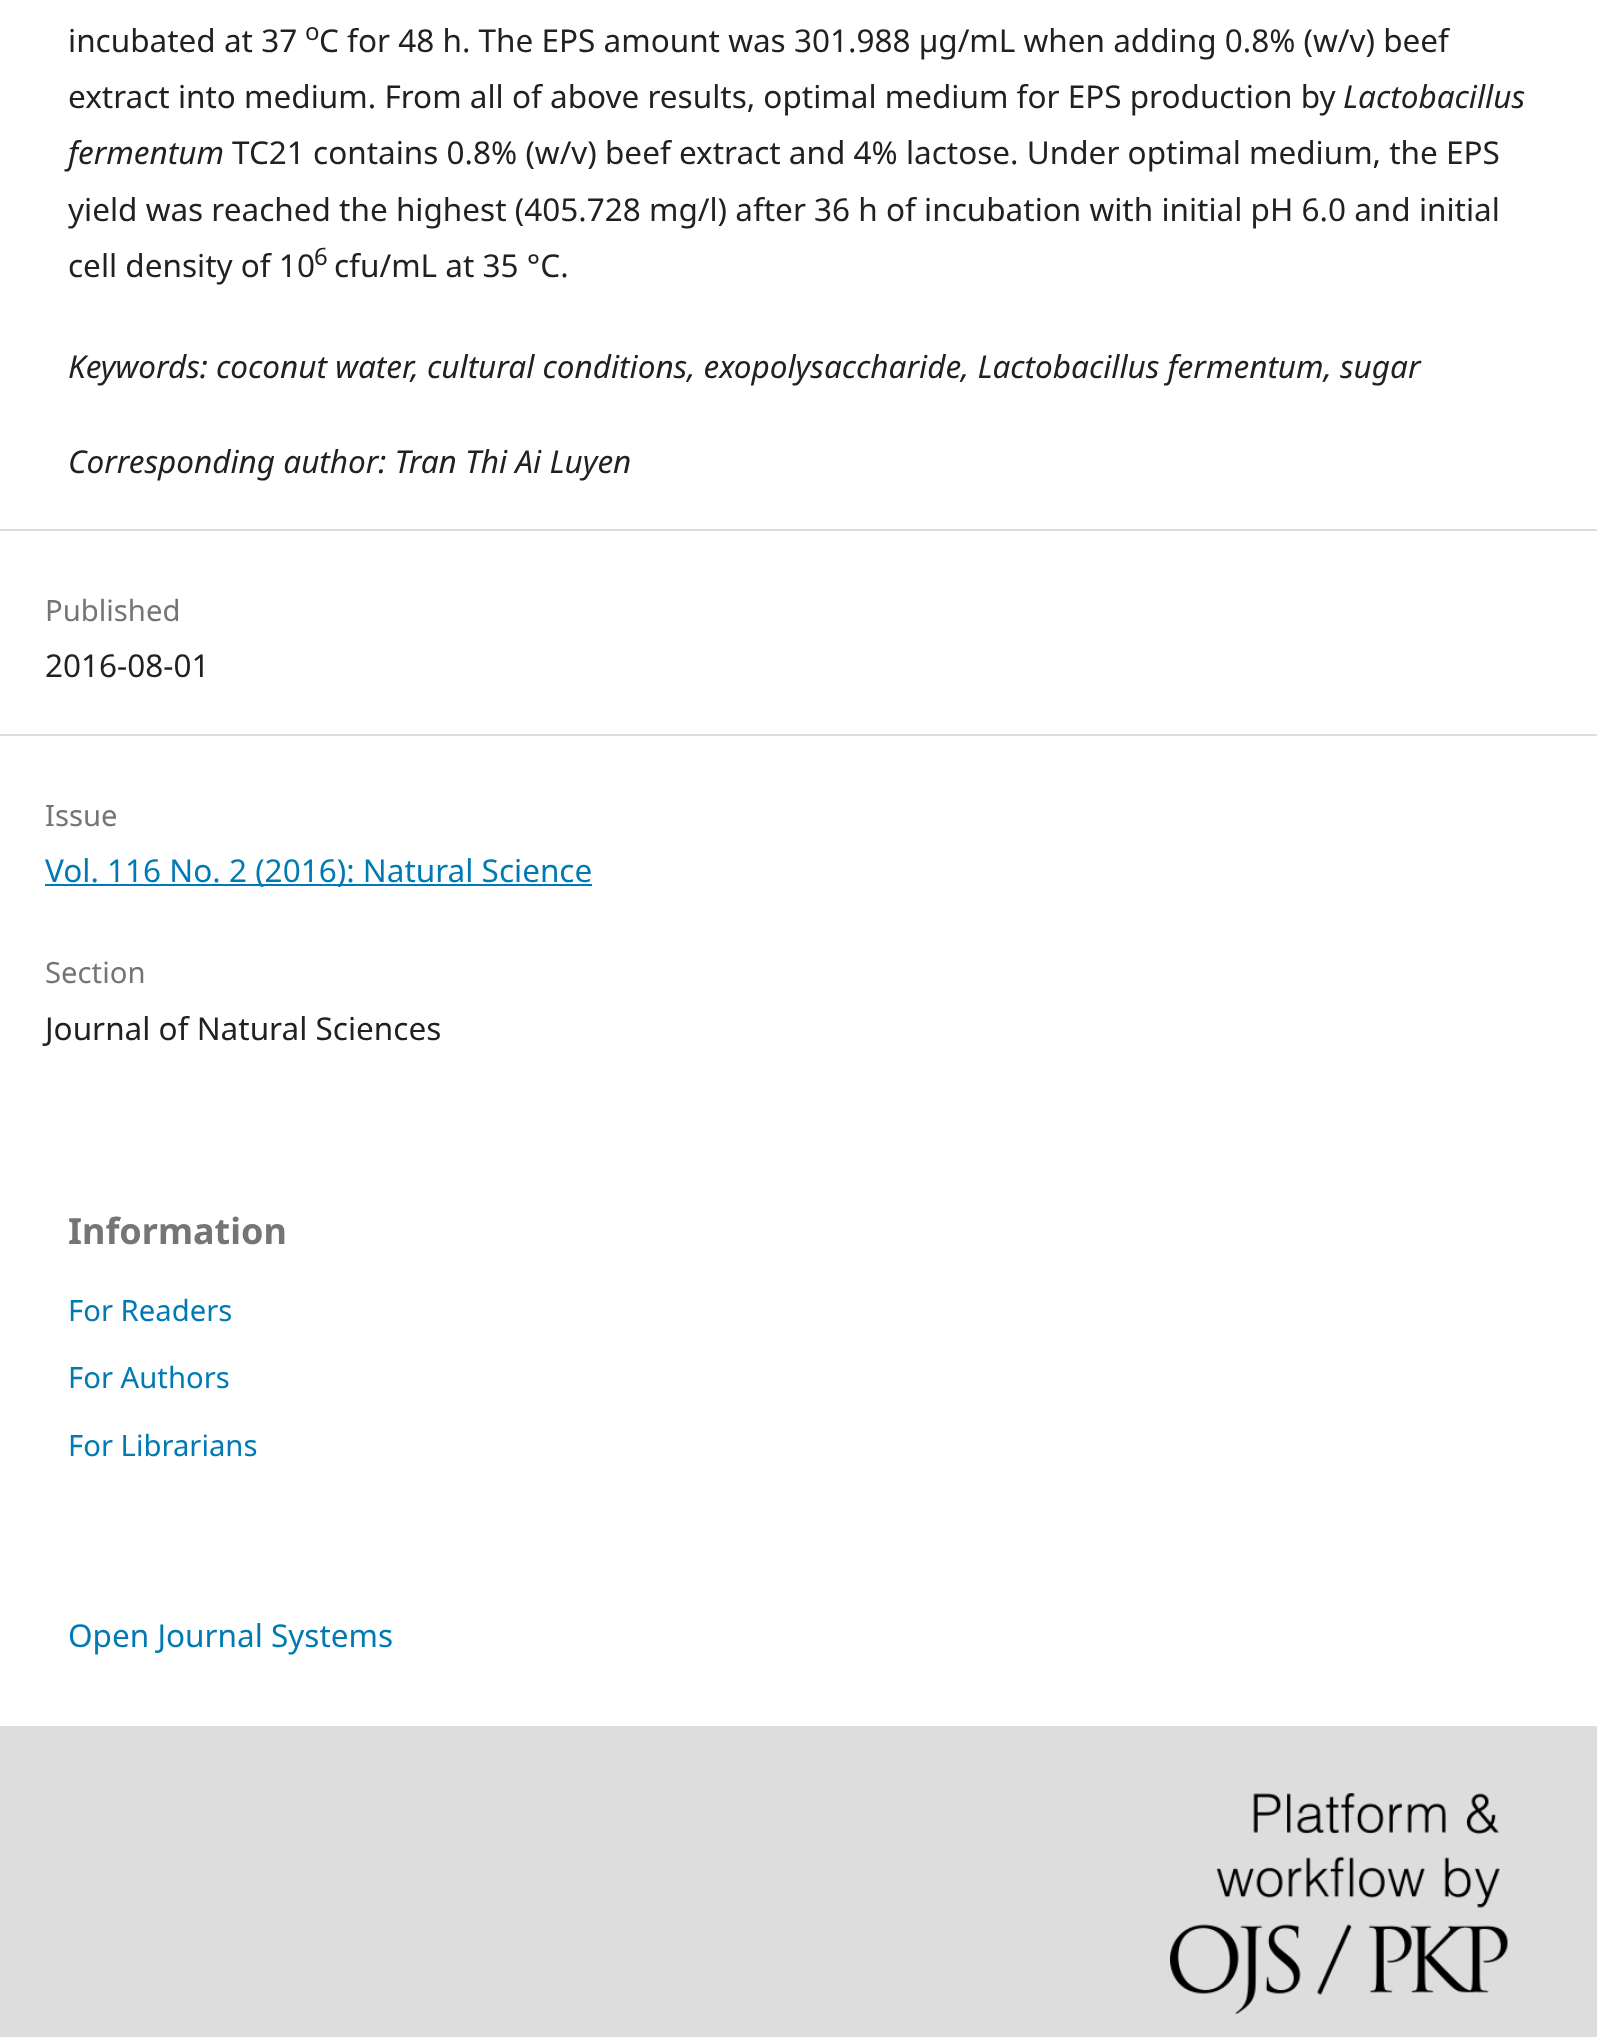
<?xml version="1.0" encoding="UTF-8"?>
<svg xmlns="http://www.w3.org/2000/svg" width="1597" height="2037">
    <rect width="100%" height="100%" fill="#FFFFFF"/>
    <text x="68" y="52" font-family="Noto Sans" font-size="31.5" fill="#212121">incubated at 37</text>
    <text x="305" y="40" font-family="Noto Sans" font-size="24" fill="#212121">o</text>
    <text x="319" y="52" font-family="Noto Sans" font-size="31.5" fill="#212121">C for 48 h. The EPS amount was 301.988 µg/mL when adding 0.8% (w/v) beef</text>
    <text x="68" y="108" font-family="Noto Sans" font-size="31.5" fill="#212121">extract into medium. From all of above results, optimal medium for EPS production by</text>
    <text x="1343" y="108" font-family="Noto Sans" font-size="31.5" font-style="italic" fill="#212121">Lactobacillus</text>
    <text x="68" y="164" font-family="Noto Sans" font-size="31.5" font-style="italic" fill="#212121">fermentum</text>
    <text x="232" y="164" font-family="Noto Sans" font-size="31.5" fill="#212121">TC21 contains 0.8% (w/v) beef extract and 4% lactose. Under optimal medium, the EPS</text>
    <text font-family="Noto Sans" font-size="31.5" fill="#212121">
        <tspan x="68" y="221">yield was reached the highest (405.728 mg/l) after 36 h of incubation with initial pH 6.0 and initial</tspan>
        <tspan x="68" y="277">cell density of 10</tspan>
    </text>
    <text x="314" y="265" font-family="Noto Sans" font-size="24" fill="#212121">6</text>
    <text x="334" y="277" font-family="Noto Sans" font-size="31.5" fill="#212121">cfu/mL at 35 °C.</text>
    <text x="68" y="378" font-family="Noto Sans" font-size="31.5" font-style="italic" fill="#212121">Keywords: coconut water, cultural conditions, exopolysaccharide, Lactobacillus fermentum, sugar</text>
    <text x="68" y="473" font-family="Noto Sans" font-size="31.5" font-style="italic" fill="#212121">Corresponding author: Tran Thi Ai Luyen</text>
    <rect x="0" y="529" width="1597" height="2" fill="#DDDDDD"/>
    <rect x="0" y="734" width="1597" height="2" fill="#DDDDDD"/>
    <text x="45" y="621" font-family="Noto Sans" font-size="29.25" fill="#757575">Published</text>
    <text x="45" y="677" font-family="Noto Sans" font-size="31.5" fill="#212121">2016-08-01</text>
    <text x="45" y="826" font-family="Noto Sans" font-size="29.25" fill="#757575">Issue</text>
    <rect x="45" y="884" width="547" height="2" fill="#007AB2"/>
    <text x="45" y="882" font-family="Noto Sans" font-size="31.5" fill="#007AB2">Vol. 116 No. 2 (2016): Natural Science</text>
    <text x="45" y="983" font-family="Noto Sans" font-size="29.25" fill="#757575">Section</text>
    <text x="45" y="1040" font-family="Noto Sans" font-size="31.5" fill="#212121">Journal of Natural Sciences</text>
    <text x="68" y="1244" font-family="Noto Sans" font-size="36" font-weight="700" fill="#757575">Information</text>
    <text x="68" y="1321" font-family="Noto Sans" font-size="29.25" fill="#007AB2">For Readers</text>
    <text x="68" y="1388" font-family="Noto Sans" font-size="29.25" fill="#007AB2">For Authors</text>
    <text x="68" y="1456" font-family="Noto Sans" font-size="29.25" fill="#007AB2">For Librarians</text>
    <text x="68" y="1647" font-family="Noto Sans" font-size="31.5" fill="#007AB2">Open Journal Systems</text>
    <rect x="0" y="1726" width="1597" height="311" fill="#DDDDDD"/>
    <image x="1170" y="1793" width="338" height="221" href="img_01.png"/>
</svg>
